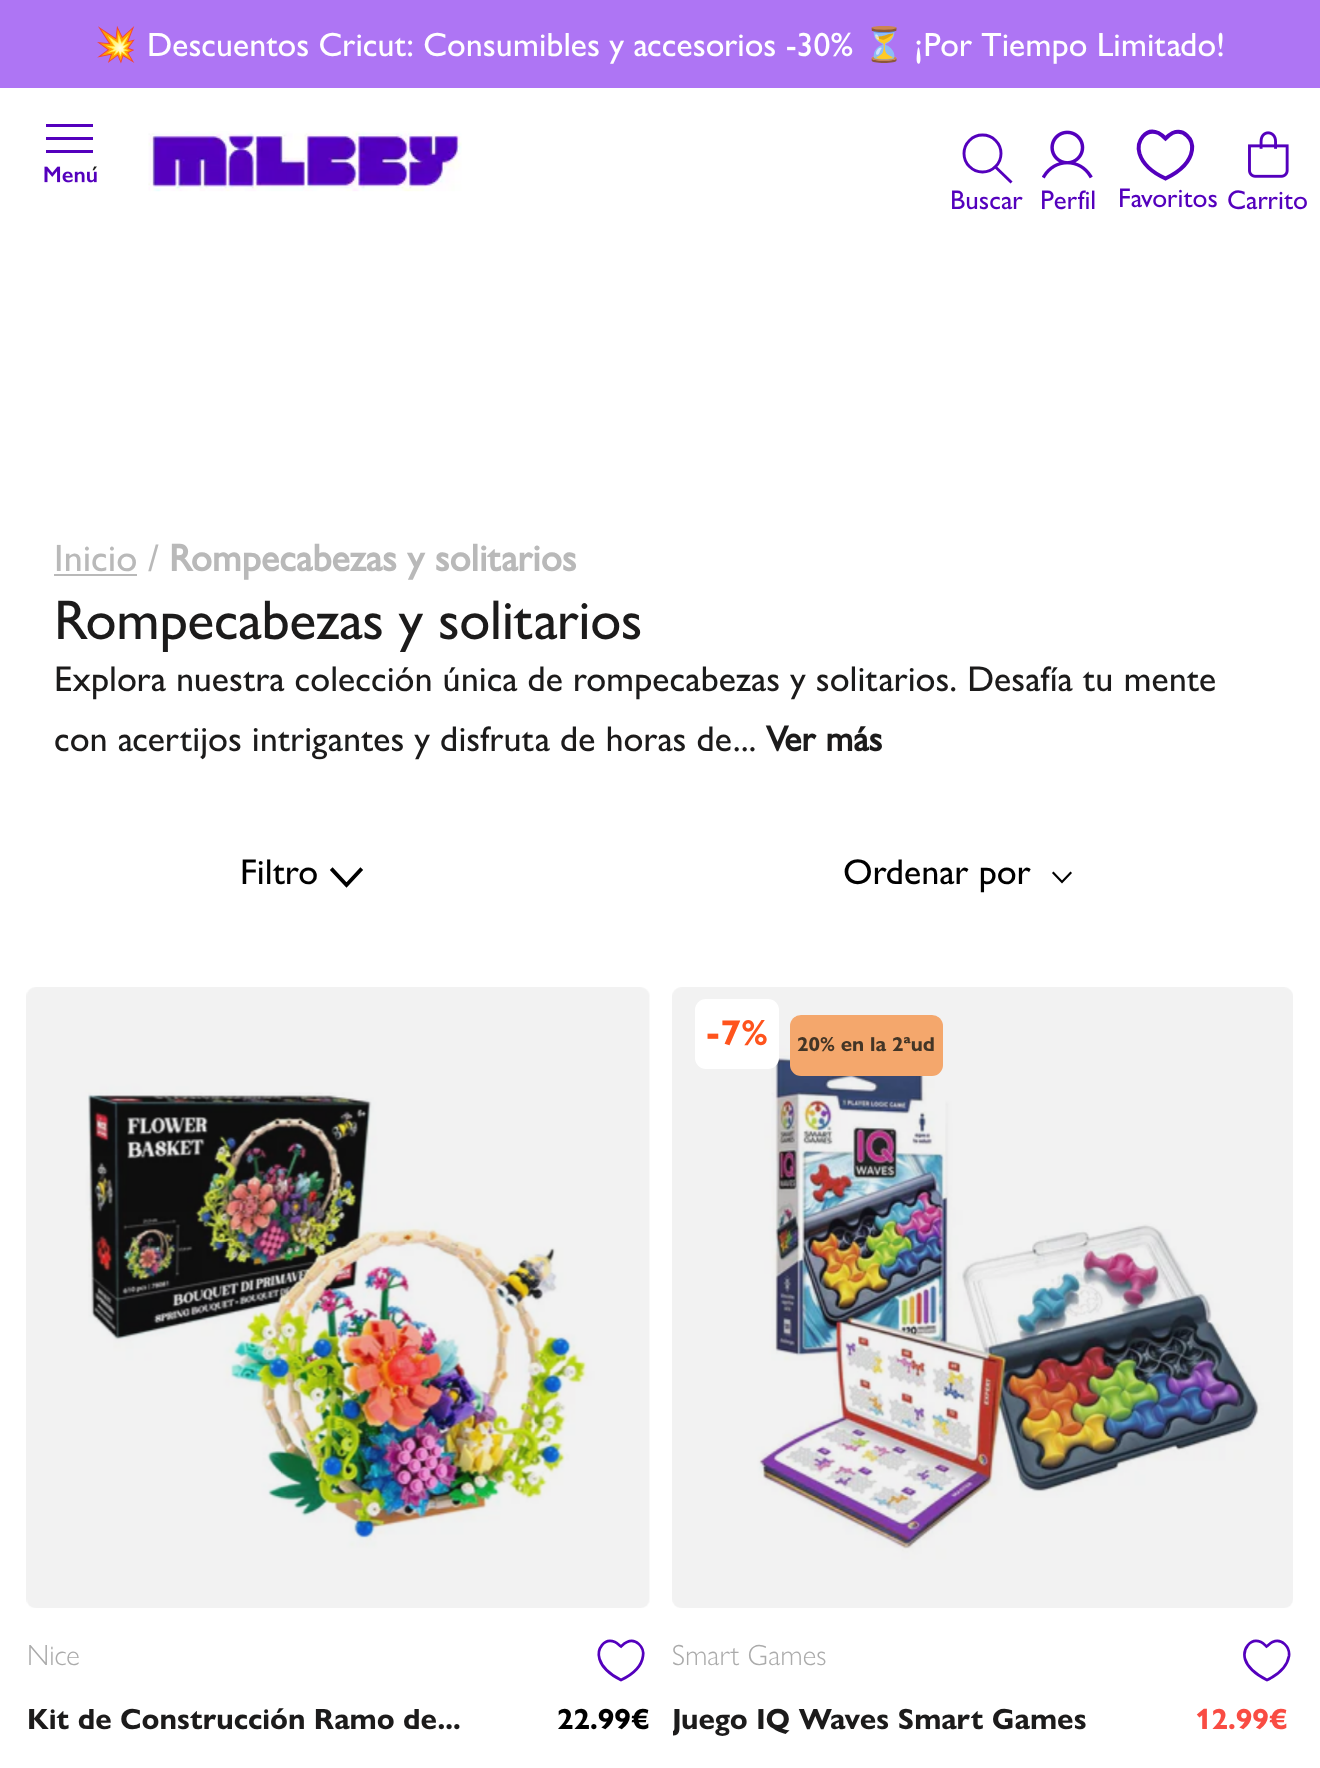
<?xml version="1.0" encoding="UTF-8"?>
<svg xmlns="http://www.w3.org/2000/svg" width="1320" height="1768">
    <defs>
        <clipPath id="clip1"><rect x="673" y="1694" width="434" height="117"/></clipPath>
    </defs>
    <rect width="100%" height="100%" fill="#FFFFFF"/>
    <rect x="0" y="0" width="1320" height="88" fill="#AE75F4"/>
    <text x="95" y="56" font-family="Noto Color Emoji" font-size="33.75" fill="#FFFFFF">💥</text>
    <text x="147" y="56" font-family="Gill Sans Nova" font-size="33.75" font-weight="500" fill="#FFFFFF">Descuentos Cricut: Consumibles y accesorios -30%</text>
    <text x="863" y="56" font-family="Noto Color Emoji" font-size="33.75" fill="#FFFFFF">⏳</text>
    <text x="914" y="56" font-family="Gill Sans Nova" font-size="33.75" font-weight="500" fill="#FFFFFF">¡Por Tiempo Limitado!</text>
    <image x="44" y="124" width="53" height="59" href="img_01.png"/>
    <text x="90" y="183" font-family="Gill Sans Nova" font-size="25" font-weight="500" fill="#1C1B1B">´</text>
    <image x="148" y="131" width="314" height="61" href="img_02.png"/>
    <path d="M 1010.5 181.5 L 995.5 167" fill="none" stroke="#5400BD" stroke-width="2.9" stroke-linecap="square"/>
    <circle cx="982.5" cy="153.5" r="18.5" fill="none" stroke="#5400BD" stroke-width="2.9"/>
    <text x="950" y="209" font-family="Gill Sans Nova" font-size="27" font-weight="500" fill="#5400BD">Buscar</text>
    <image x="1042" y="130" width="51" height="49" href="img_03.png"/>
    <text x="1040" y="209" font-family="Gill Sans Nova" font-size="27" font-weight="500" fill="#5400BD">Perfil</text>
    <path d="M 1165.5 178.5 C 1154.5 173.5 1143 165 1139.5 153.5 C 1136 141 1145.5 127.5 1158.5 133 C 1161.5 134.5 1163.5 136.5 1165.5 138.5 C 1167.5 136.5 1169.5 134.5 1172.5 133 C 1184 128.5 1193.5 139 1192 150 C 1190 163.5 1177 173 1165.5 178.5 Z" fill="none" stroke="#5400BD" stroke-width="4"/>
    <text x="1118" y="207" font-family="Gill Sans Nova" font-size="27" font-weight="500" fill="#5400BD">Favoritos</text>
    <image x="1248" y="131" width="41" height="47" href="img_04.png"/>
    <text x="1227" y="209" font-family="Gill Sans Nova" font-size="27" font-weight="500" fill="#5400BD">Carrito</text>
    <text x="54" y="571" font-family="Gill Sans Nova" font-size="38.25" font-weight="500" fill="#B9B9B9">Inicio /</text>
    <rect x="54" y="574" width="83" height="2" fill="#B9B9B9"/>
    <text x="169" y="571" font-family="Gill Sans Nova" font-size="38.25" font-weight="700" fill="#B9B9B9">Rompecabezas y solitarios</text>
    <text x="54" y="639" font-family="Gill Sans Nova" font-size="56.25" font-weight="500" letter-spacing="-0.45" fill="#1C1B1B">Rompecabezas y solitarios</text>
    <text font-family="Gill Sans Nova" font-size="36" font-weight="500" fill="#1C1B1B">
        <tspan x="54" y="691">Explora nuestra colección única de rompecabezas y solitarios. Desafía tu mente</tspan>
        <tspan x="54" y="751">con acertijos intrigantes y disfruta de horas de...</tspan>
    </text>
    <text x="766" y="751" font-family="Gill Sans Nova" font-size="36" font-weight="700" fill="#1C1B1B">Ver más</text>
    <text x="240" y="884" font-family="Gill Sans Nova" font-size="36" font-weight="500" fill="#000000">Filtro</text>
    <path d="M 360.5 870 L 346.5 885 L 332.5 870" fill="none" stroke="#000000" stroke-width="3.8" stroke-linecap="square"/>
    <text x="843" y="884" font-family="Gill Sans Nova" font-size="36" font-weight="500" fill="#000000">Ordenar por</text>
    <path d="M 1070.5 873 L 1062 882 L 1053.5 873" fill="none" stroke="#000000" stroke-width="2.2" stroke-linecap="square"/>
    <image x="26" y="987" width="624" height="621" href="img_05.png"/>
    <text x="27" y="1665" font-family="Gill Sans Nova" font-size="29.25" font-weight="300" fill="#ABABAB">Nice</text>
    <path d="M 621 1680 C 612 1675.5 602.5 1669 599.5 1659 C 596.5 1649 604 1637.5 615 1642 C 617.5 1643 619 1645 621 1646.5 C 622.5 1645 624.5 1643 627 1642 C 636 1638 644.5 1647 643 1656 C 641.5 1667.5 630.5 1675.5 621 1680 Z" fill="none" stroke="#5400BD" stroke-width="2.7"/>
    <text x="27" y="1729" font-family="'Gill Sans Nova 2'" font-size="29.25" font-weight="700" fill="#1C1B1B">Kit de Construcción Ramo de...</text>
    <text x="557" y="1729" font-family="'Gill Sans Nova 2'" font-size="29.25" font-weight="700" fill="#000000">22.99€</text>
    <image x="672" y="987" width="621" height="621" href="img_06.png"/>
    <rect x="695" y="999" width="84" height="70" rx="11" fill="#FFFFFF"/>
    <text x="705" y="1045" font-family="'Gill Sans Nova 2'" font-size="36" font-weight="700" fill="#FF541D">-7%</text>
    <rect x="790" y="1015" width="153" height="61" rx="11" fill="#F4A76C"/>
    <text x="797" y="1051" font-family="'Gill Sans Nova 2'" font-size="20.25" font-weight="700" fill="#433526">20% en la 2ªud</text>
    <text x="672" y="1665" font-family="Gill Sans Nova" font-size="29.25" font-weight="300" fill="#ABABAB">Smart Games</text>
    <path d="M 1267 1680 C 1258 1675.5 1248 1669 1245 1659 C 1242.5 1649 1250 1637.5 1261 1642 C 1263.5 1643 1265 1645 1266.5 1646.5 C 1268.5 1645 1270 1643 1272.5 1642 C 1282 1638 1290 1647 1289 1656 C 1287 1667.5 1276.5 1675.5 1267 1680 Z" fill="none" stroke="#5400BD" stroke-width="2.7"/>
    <g clip-path="url(#clip1)">
        <text x="672" y="1729" font-family="'Gill Sans Nova 2'" font-size="29.25" font-weight="700" fill="#1C1B1B">Juego IQ Waves Smart Games</text>
    </g>
    <text x="1195" y="1729" font-family="'Gill Sans Nova 2'" font-size="29.25" font-weight="700" fill="#F94C43">12.99€</text>
</svg>
